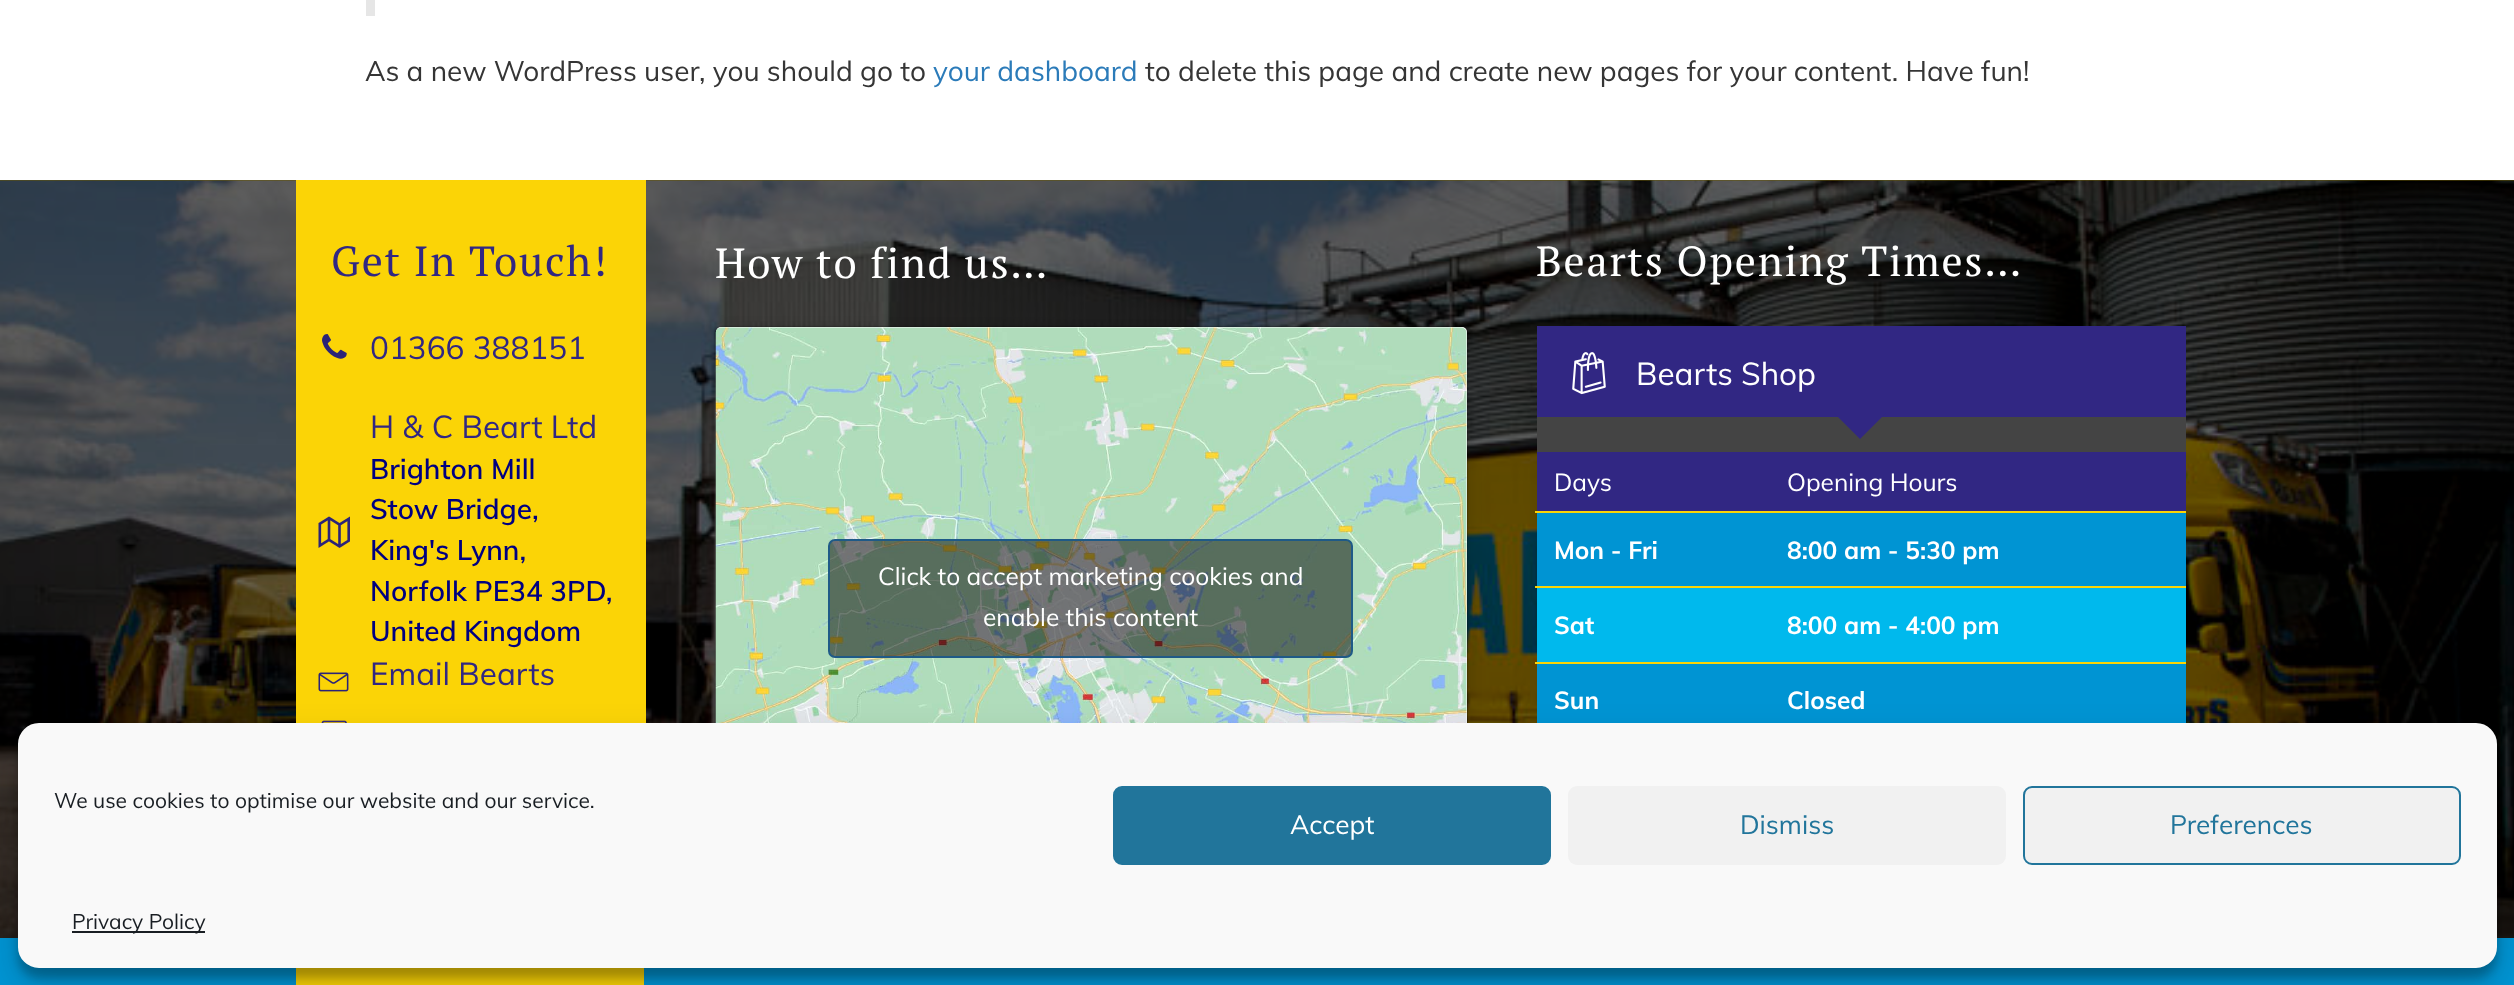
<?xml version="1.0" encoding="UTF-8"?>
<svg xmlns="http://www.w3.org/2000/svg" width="2514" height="985">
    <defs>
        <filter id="blur1" x="-50%" y="-200%" width="200%" height="500%"><feGaussianBlur stdDeviation="9"/></filter>
        <filter id="blur2" x="-50%" y="-200%" width="200%" height="500%"><feGaussianBlur stdDeviation="1"/></filter>
        <filter id="blur3" x="-50%" y="-200%" width="200%" height="500%"><feGaussianBlur stdDeviation="5"/></filter>
        <filter id="blur4" x="-50%" y="-200%" width="200%" height="500%"><feGaussianBlur stdDeviation="17.5"/></filter>
    </defs>
    <rect width="100%" height="100%" fill="#FFFFFF"/>
    <rect x="366" y="0" width="9" height="16" fill="#E6E6E6"/>
    <text x="365" y="81" font-family="Muli" font-size="28" fill="#353535">As a new WordPress user, you should go to</text>
    <text x="933" y="81" font-family="Muli" font-size="28" fill="#2B7BB9">your dashboard</text>
    <text x="1145" y="81" font-family="Muli" font-size="28" fill="#353535">to delete this page and create new pages for your content. Have fun!</text>
    <rect x="0" y="180" width="2514" height="1" fill="#645502"/>
    <image x="0" y="180" width="2514" height="758" href="img_01.png"/>
    <rect x="296" y="180" width="350" height="543" fill="#FBD406"/>
    <text x="331" y="276" font-family="PT Serif" font-size="42" letter-spacing="1.75" fill="#312783">Get In Touch!</text>
    <image x="322" y="334" width="25" height="25" href="img_02.png"/>
    <text x="370" y="359" font-family="Muli" font-size="31.5" fill="#312783">01366 388151</text>
    <image x="318" y="516" width="32" height="32" href="img_03.png"/>
    <text x="370" y="438" font-family="Muli" font-size="31.5" fill="#312783">H &amp; C Beart Ltd</text>
    <text font-family="Muli" font-size="28" font-weight="600" fill="#000080">
        <tspan x="370" y="479">Brighton Mill</tspan>
        <tspan x="370" y="519">Stow Bridge,</tspan>
        <tspan x="370" y="560">King's Lynn,</tspan>
        <tspan x="370" y="601">Norfolk PE34 3PD,</tspan>
        <tspan x="370" y="641">United Kingdom</tspan>
    </text>
    <image x="318" y="672" width="31" height="20" href="img_04.png"/>
    <text x="370" y="685" font-family="Muli" font-size="31.5" fill="#312783">Email Bearts</text>
    <image x="321" y="720" width="26" height="3" href="img_05.png"/>
    <text x="715" y="278" font-family="PT Serif" font-size="42" letter-spacing="1.75" fill="#FFFFFF">How to find us…</text>
    <rect x="716" y="329" width="751" height="541" rx="5" fill="#000000" fill-opacity="0.15" filter="url(#blur1)"/>
    <rect x="716" y="327" width="751" height="541" rx="5" fill="#000000" fill-opacity="0.5" filter="url(#blur2)"/>
    <rect x="716" y="327" width="751" height="541" rx="5" fill="#FFFFFF"/>
    <image x="715" y="327" width="752" height="396" href="img_06.png"/>
    <rect x="829" y="540" width="523" height="117" rx="6" fill="#000000" fill-opacity="0.5" stroke="#1F5A87" stroke-width="2"/>
    <text x="878" y="585" font-family="Muli" font-size="24.5" fill="#FFFFFF">Click to accept marketing cookies and</text>
    <text x="983" y="626" font-family="Muli" font-size="24.5" fill="#FFFFFF">enable this content</text>
    <text x="1536" y="276" font-family="PT Serif" font-size="42" letter-spacing="1.75" fill="#FFFFFF">Bearts Opening Times…</text>
    <rect x="1537" y="326" width="649" height="91" fill="#312783"/>
    <image x="1572" y="352" width="34" height="43" href="img_07.png"/>
    <text x="1636" y="385" font-family="Muli" font-size="31.5" fill="#FFFFFF">Bearts Shop</text>
    <rect x="1537" y="417" width="649" height="35" fill="#444444"/>
    <path d="M 1834 413 H 1886 L 1860 439 Z" fill="#312783"/>
    <rect x="1537" y="452" width="649" height="59" fill="#312783"/>
    <text x="1554" y="491" font-family="Muli" font-size="24.5" fill="#FFFFFF">Days</text>
    <text x="1787" y="491" font-family="Muli" font-size="24.5" fill="#FFFFFF">Opening Hours</text>
    <rect x="1537" y="513" width="649" height="73" fill="#0094D3"/>
    <text x="1554" y="559" font-family="Muli" font-size="24.5" font-weight="700" fill="#FFFFFF">Mon - Fri</text>
    <rect x="1535" y="511" width="651" height="2" fill="#FBD406"/>
    <text x="1787" y="559" font-family="Muli" font-size="24.5" font-weight="700" fill="#FFFFFF">8:00 am - 5:30 pm</text>
    <rect x="1537" y="588" width="649" height="74" fill="#00B9ED"/>
    <text x="1554" y="634" font-family="Muli" font-size="24.5" font-weight="700" fill="#FFFFFF">Sat</text>
    <rect x="1535" y="586" width="651" height="2" fill="#FBD406"/>
    <text x="1787" y="634" font-family="Muli" font-size="24.5" font-weight="700" fill="#FFFFFF">8:00 am - 4:00 pm</text>
    <rect x="1537" y="664" width="649" height="59" fill="#0094D3"/>
    <text x="1554" y="709" font-family="Muli" font-size="24.5" font-weight="700" fill="#FFFFFF">Sun</text>
    <rect x="1535" y="662" width="651" height="2" fill="#FBD406"/>
    <text x="1787" y="709" font-family="Muli" font-size="24.5" font-weight="700" fill="#FFFFFF">Closed</text>
    <rect x="0" y="938" width="2514" height="47" fill="#0094D3"/>
    <rect x="296" y="968" width="348" height="17" fill="#FBD406"/>
    <rect x="18" y="733" width="2479" height="245" rx="21" fill="#000000" fill-opacity="0.23" filter="url(#blur3)"/>
    <rect x="18" y="740" width="2479" height="245" rx="21" fill="#000000" fill-opacity="0.19" filter="url(#blur4)"/>
    <rect x="19" y="724" width="2477" height="243" rx="20" fill="#F9F9F9" stroke="#F9F9F9" stroke-width="2"/>
    <text x="54" y="808" font-family="Muli" font-size="21" fill="#191E23">We use cookies to optimise our website and our service.</text>
    <rect x="1114" y="787" width="436" height="77" rx="8" fill="#21759B" stroke="#21759B" stroke-width="2"/>
    <text x="1290" y="834" font-family="Muli" font-size="26.25" fill="#FFFFFF">Accept</text>
    <rect x="1568" y="786" width="438" height="79" rx="9" fill="#F1F1F1"/>
    <text x="1740" y="834" font-family="Muli" font-size="26.25" fill="#21759B">Dismiss</text>
    <rect x="2024" y="787" width="436" height="77" rx="8" fill="#F1F1F1" stroke="#21759B" stroke-width="2"/>
    <text x="2170" y="834" font-family="Muli" font-size="26.25" fill="#21759B">Preferences</text>
    <rect x="72" y="931" width="133" height="2" fill="#191E23"/>
    <text x="72" y="929" font-family="Muli" font-size="21" fill="#191E23">Privacy Policy</text>
</svg>
